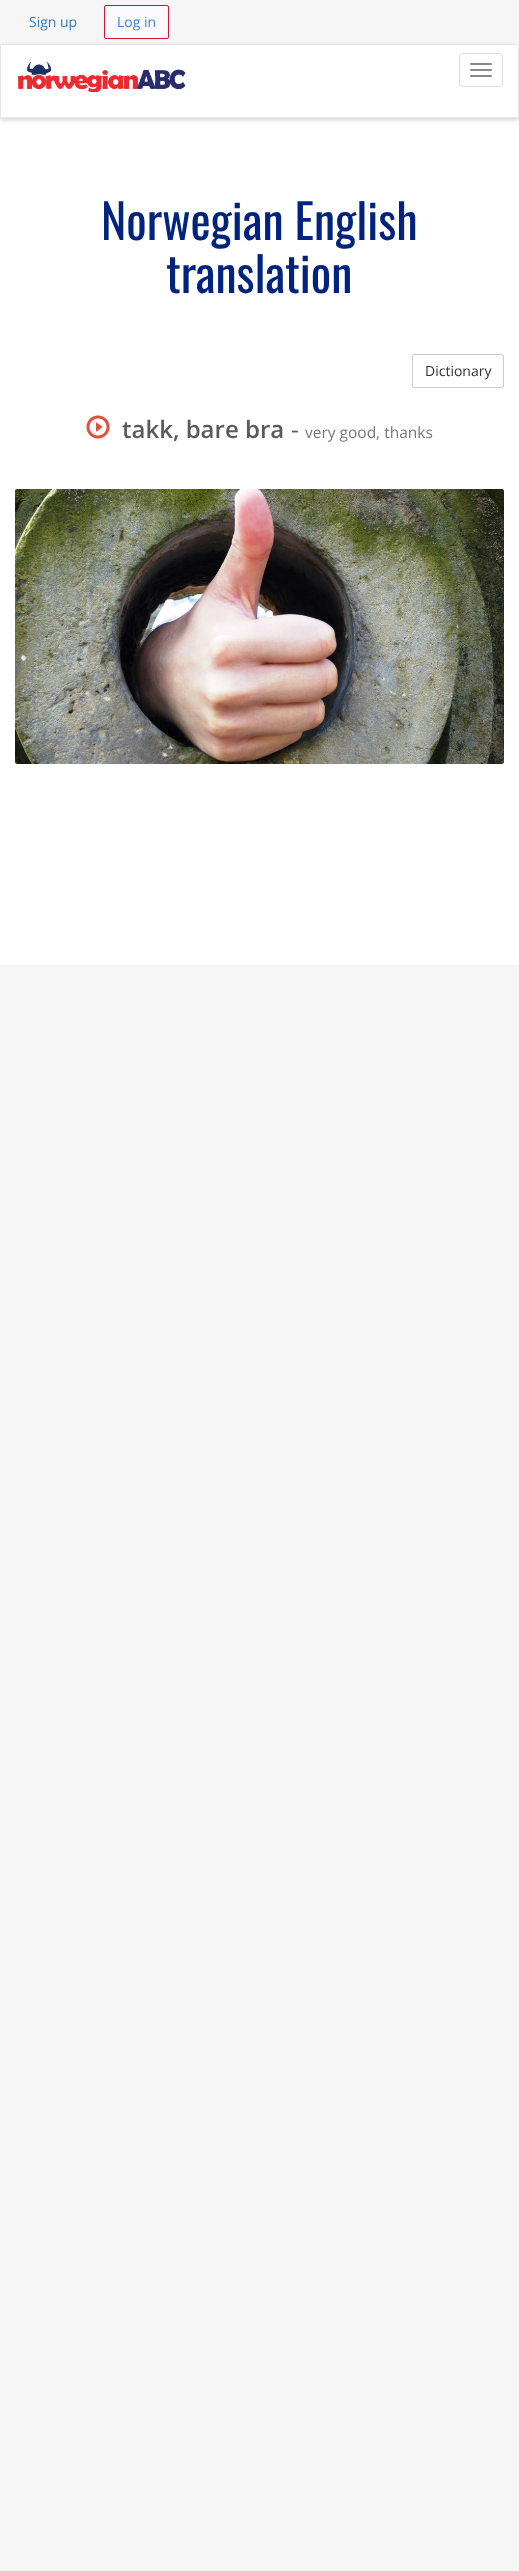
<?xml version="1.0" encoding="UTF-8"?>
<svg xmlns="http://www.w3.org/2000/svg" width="519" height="2571">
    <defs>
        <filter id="blur1" x="-50%" y="-200%" width="200%" height="500%"><feGaussianBlur stdDeviation="2.5"/></filter>
    </defs>
    <rect width="100%" height="100%" fill="#F6F6F6"/>
    <text x="29" y="27" font-family="Open Sans" font-size="14" fill="#337AB7">Sign up</text>
    <rect x="104.5" y="5.5" width="64" height="33" rx="1.5" fill="#FAFAFA" stroke="#CF142B"/>
    <text x="117" y="27" font-family="Open Sans" font-size="14" fill="#3E82D9">Log in</text>
    <rect x="0" y="118" width="519" height="846" fill="#FFFFFF"/>
    <rect x="0" y="46" width="519" height="74" fill="#000000" fill-opacity="0.17" filter="url(#blur1)"/>
    <rect x="0.5" y="44.5" width="518" height="73" fill="#FFFFFF" stroke="#E7E7E7"/>
    <image x="17" y="62" width="169" height="31" href="img_01.png"/>
    <rect x="459.5" y="53.5" width="43" height="33" rx="3.5" fill="none" stroke="#DDDDDD"/>
    <rect x="470" y="63" width="22" height="2" rx="1" fill="#888888"/>
    <rect x="470" y="69" width="22" height="2" rx="1" fill="#888888"/>
    <rect x="470" y="75" width="22" height="2" rx="1" fill="#888888"/>
    <rect x="0" y="964" width="519" height="1" fill="#FAFAFA"/>
    <text x="101" y="240" font-family="Oswald" font-size="48" fill="#00247D">Norwegian English</text>
    <text x="166" y="293" font-family="Oswald" font-size="48" fill="#00247D">translation</text>
    <rect x="412.5" y="354.5" width="91" height="33" rx="1.5" fill="none" stroke="#CCCCCC"/>
    <text x="425" y="376" font-family="Open Sans" font-size="14" fill="#333333">Dictionary</text>
    <image x="86" y="415" width="24" height="24" href="img_02.png"/>
    <text x="122" y="438" font-family="Open Sans" font-size="24" font-weight="600" fill="#5A5A5A">takk, bare bra</text>
    <text x="291" y="438" font-family="Open Sans" font-size="24" fill="#5A5A5A">-</text>
    <text x="305" y="438" font-family="Open Sans" font-size="15.5" fill="#777777">very good, thanks</text>
    <image x="15" y="489" width="489" height="275" href="img_03.png"/>
</svg>
